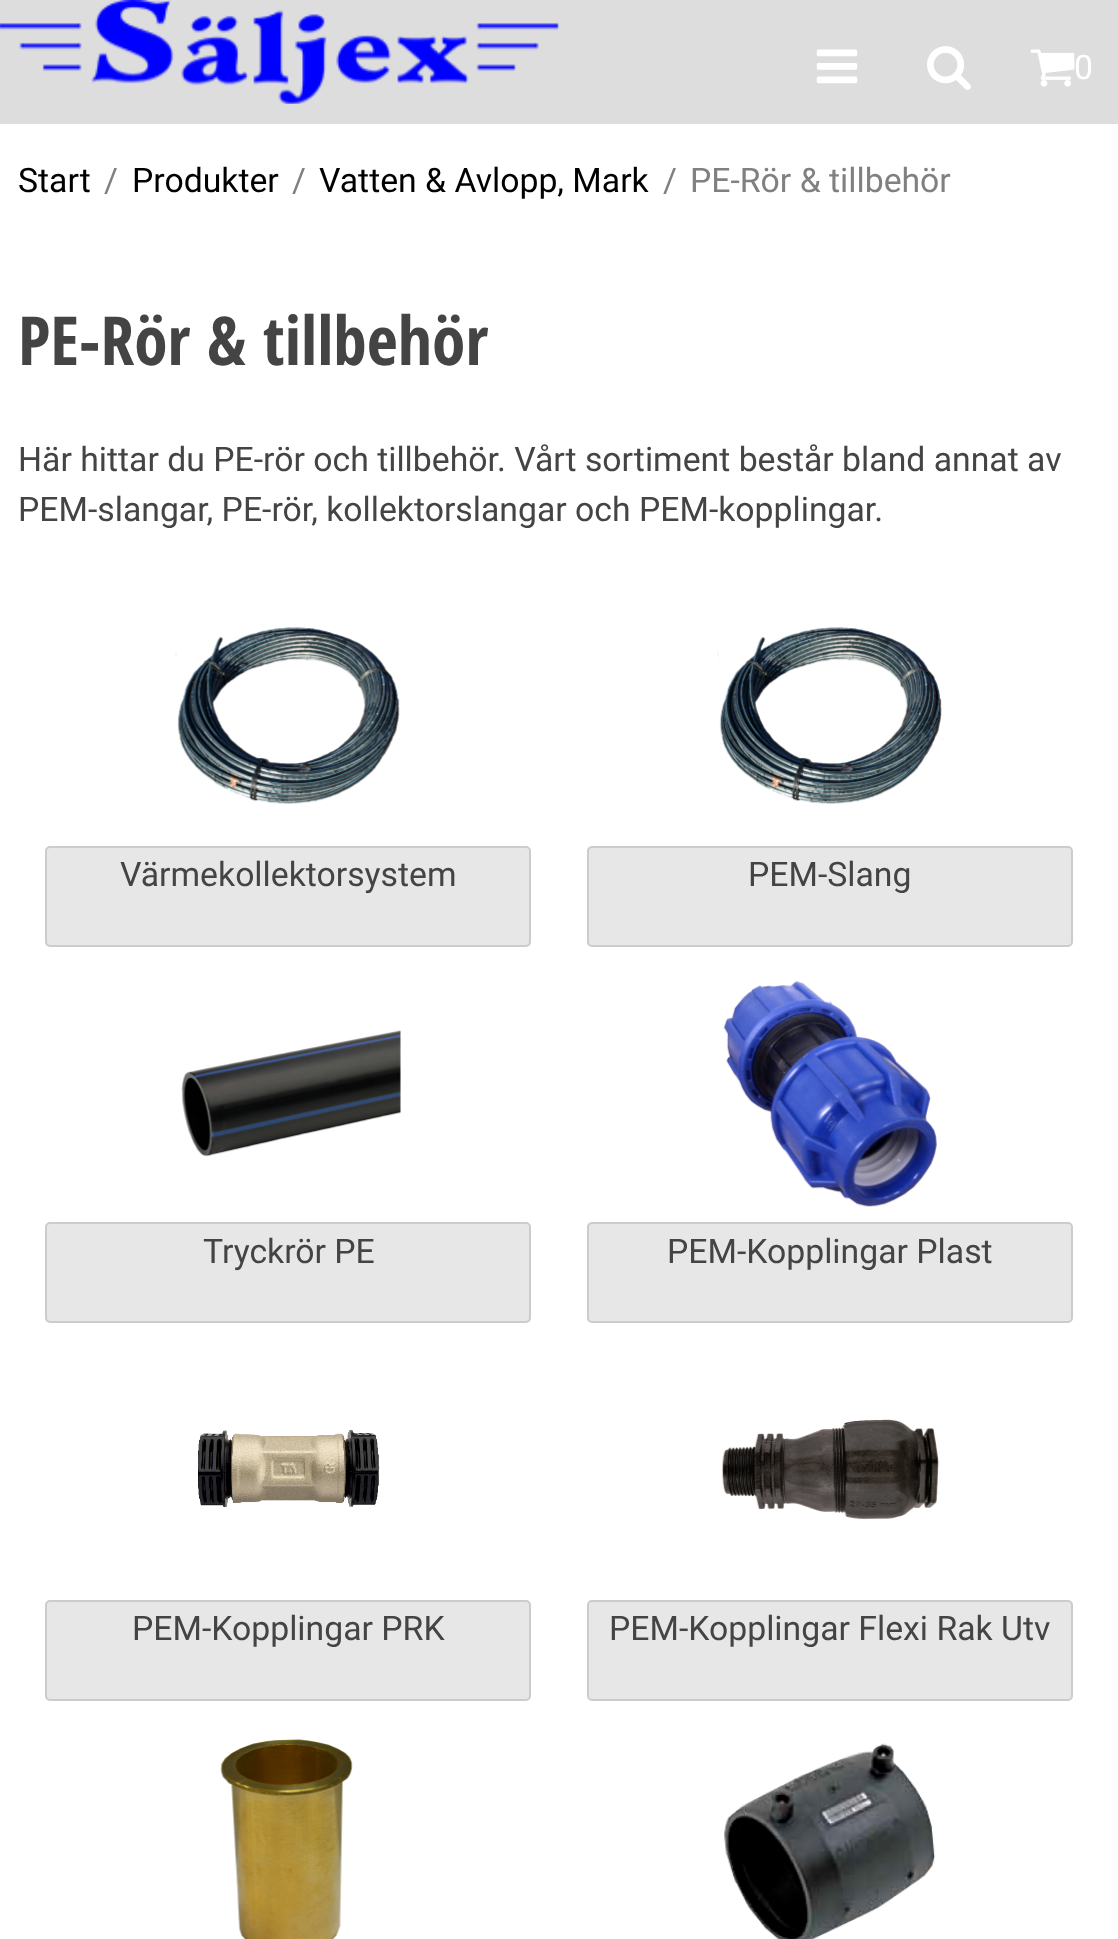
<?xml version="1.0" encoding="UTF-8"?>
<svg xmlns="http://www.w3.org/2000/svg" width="1118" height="1939">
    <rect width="100%" height="100%" fill="#FFFFFF"/>
    <rect x="0" y="0" width="1118" height="124" fill="#DDDDDD"/>
    <image x="0" y="0" width="559" height="104" href="img_01.png"/>
    <image x="816" y="49" width="42" height="35" href="img_02.png"/>
    <image x="927" y="46" width="44" height="44" href="img_03.png"/>
    <image x="1030" y="49" width="45" height="38" href="img_04.png"/>
    <text x="1074" y="79" font-family="Roboto" font-size="33.75" fill="#FFFFFF">0</text>
    <text x="18" y="192" font-family="Roboto" font-size="33.75" fill="#000000">Start</text>
    <text x="104" y="192" font-family="Roboto" font-size="33.75" fill="#808080">/</text>
    <text x="132" y="192" font-family="Roboto" font-size="33.75" fill="#000000">Produkter</text>
    <text x="292" y="192" font-family="Roboto" font-size="33.75" fill="#808080">/</text>
    <text x="319" y="192" font-family="Roboto" font-size="33.75" fill="#000000">Vatten &amp; Avlopp, Mark</text>
    <text x="663" y="192" font-family="Roboto" font-size="33.75" fill="#808080">/</text>
    <text x="690" y="192" font-family="Roboto" font-size="33.75" fill="#808080">PE-Rör &amp; tillbehör</text>
    <text x="18" y="365" font-family="Open Sans Condensed" font-size="67.5" font-weight="700" fill="#444444">PE-Rör &amp; tillbehör</text>
    <text font-family="Roboto" font-size="33.75" fill="#444444">
        <tspan x="18" y="471">Här hittar du PE-rör och tillbehör. Vårt sortiment består bland annat av</tspan>
        <tspan x="18" y="521">PEM-slangar, PE-rör, kollektorslangar och PEM-kopplingar.</tspan>
    </text>
    <image x="175" y="627" width="226" height="178" href="img_05.png"/>
    <rect x="46" y="847" width="484" height="99" rx="4" fill="#E7E7E7" stroke="#CCCCCC" stroke-width="2"/>
    <text x="120" y="886" font-family="Roboto" font-size="33.75" fill="#444444">Värmekollektorsystem</text>
    <image x="717" y="627" width="226" height="178" href="img_06.png"/>
    <rect x="588" y="847" width="484" height="99" rx="4" fill="#E7E7E7" stroke="#CCCCCC" stroke-width="2"/>
    <text x="748" y="886" font-family="Roboto" font-size="33.75" fill="#444444">PEM-Slang</text>
    <image x="181" y="1030" width="220" height="127" href="img_07.png"/>
    <rect x="46" y="1223" width="484" height="99" rx="4" fill="#E7E7E7" stroke="#CCCCCC" stroke-width="2"/>
    <text x="203" y="1263" font-family="Roboto" font-size="33.75" fill="#444444">Tryckrör PE</text>
    <image x="723" y="981" width="214" height="226" href="img_08.png"/>
    <rect x="588" y="1223" width="484" height="99" rx="4" fill="#E7E7E7" stroke="#CCCCCC" stroke-width="2"/>
    <text x="667" y="1263" font-family="Roboto" font-size="33.75" fill="#444444">PEM-Kopplingar Plast</text>
    <image x="198" y="1429" width="182" height="79" href="img_09.png"/>
    <rect x="46" y="1601" width="484" height="99" rx="4" fill="#E7E7E7" stroke="#CCCCCC" stroke-width="2"/>
    <text x="132" y="1640" font-family="Roboto" font-size="33.75" fill="#444444">PEM-Kopplingar PRK</text>
    <image x="721" y="1419" width="218" height="101" href="img_10.png"/>
    <rect x="588" y="1601" width="484" height="99" rx="4" fill="#E7E7E7" stroke="#CCCCCC" stroke-width="2"/>
    <text x="609" y="1640" font-family="Roboto" font-size="33.75" fill="#444444">PEM-Kopplingar Flexi Rak Utv</text>
    <image x="220" y="1739" width="133" height="200" href="img_11.png"/>
    <image x="724" y="1743" width="212" height="196" href="img_12.png"/>
</svg>
